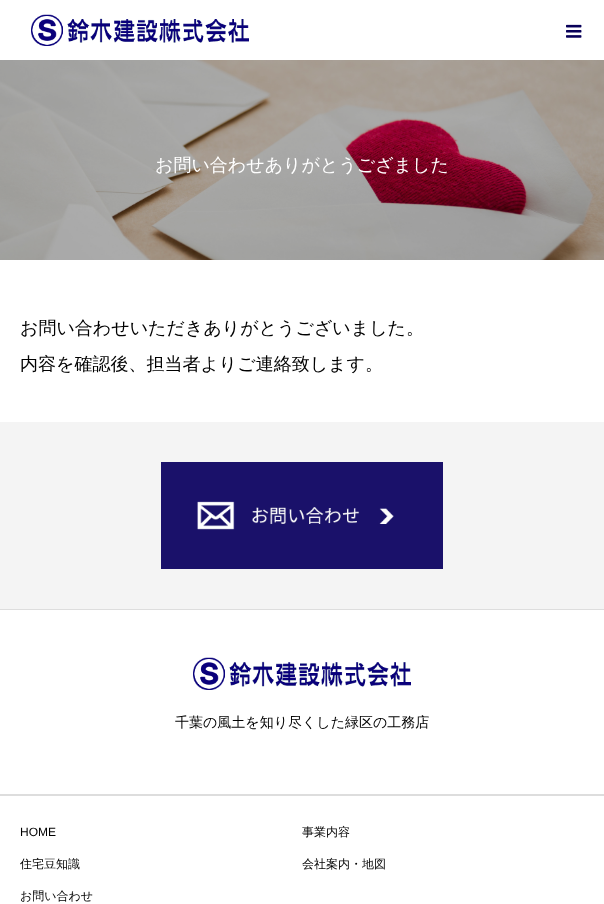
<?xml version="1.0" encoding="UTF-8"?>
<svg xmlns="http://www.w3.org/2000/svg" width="604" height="904">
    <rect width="100%" height="100%" fill="#FFFFFF"/>
    <image x="31" y="14" width="218" height="32" href="img_01.png"/>
    <image x="566" y="24" width="16" height="14" href="img_02.png"/>
    <image x="0" y="60" width="604" height="200" href="img_03.png"/>
    <text x="155" y="171" font-family="WenQuanYi Zen Hei" font-size="18" font-weight="500" fill="#FFFFFF">お問い合わせありがとうござました</text>
    <text x="20" y="334" font-family="WenQuanYi Zen Hei" font-size="18" font-weight="500" fill="#000000">お問い合わせいただきありがとうございました。</text>
    <text x="20" y="370" font-family="WenQuanYi Zen Hei" font-size="18" font-weight="500" fill="#000000">内容を確認後、担当者よりご連絡致します。</text>
    <rect x="0" y="422" width="604" height="187" fill="#F4F4F4"/>
    <rect x="0" y="609" width="604" height="1" fill="#DDDDDD"/>
    <image x="161" y="462" width="282" height="107" href="img_04.png"/>
    <rect x="0" y="794" width="604" height="2" fill="#DDDDDD"/>
    <image x="193" y="657" width="218" height="33" href="img_05.png"/>
    <text x="175" y="727" font-family="WenQuanYi Zen Hei" font-size="14" font-weight="500" fill="#000000">千葉の風土を知り尽くした緑区の工務店</text>
    <text x="20" y="836" font-family="Liberation Sans" font-size="12" fill="#000000">HOME</text>
    <text x="302" y="836" font-family="WenQuanYi Zen Hei" font-size="12" font-weight="500" fill="#000000">事業内容</text>
    <text x="20" y="868" font-family="WenQuanYi Zen Hei" font-size="12" font-weight="500" fill="#000000">住宅豆知識</text>
    <text x="302" y="868" font-family="WenQuanYi Zen Hei" font-size="12" font-weight="500" fill="#000000">会社案内・地図</text>
    <text x="20" y="900" font-family="WenQuanYi Zen Hei" font-size="12" font-weight="500" fill="#000000">お問い合わせ</text>
</svg>
